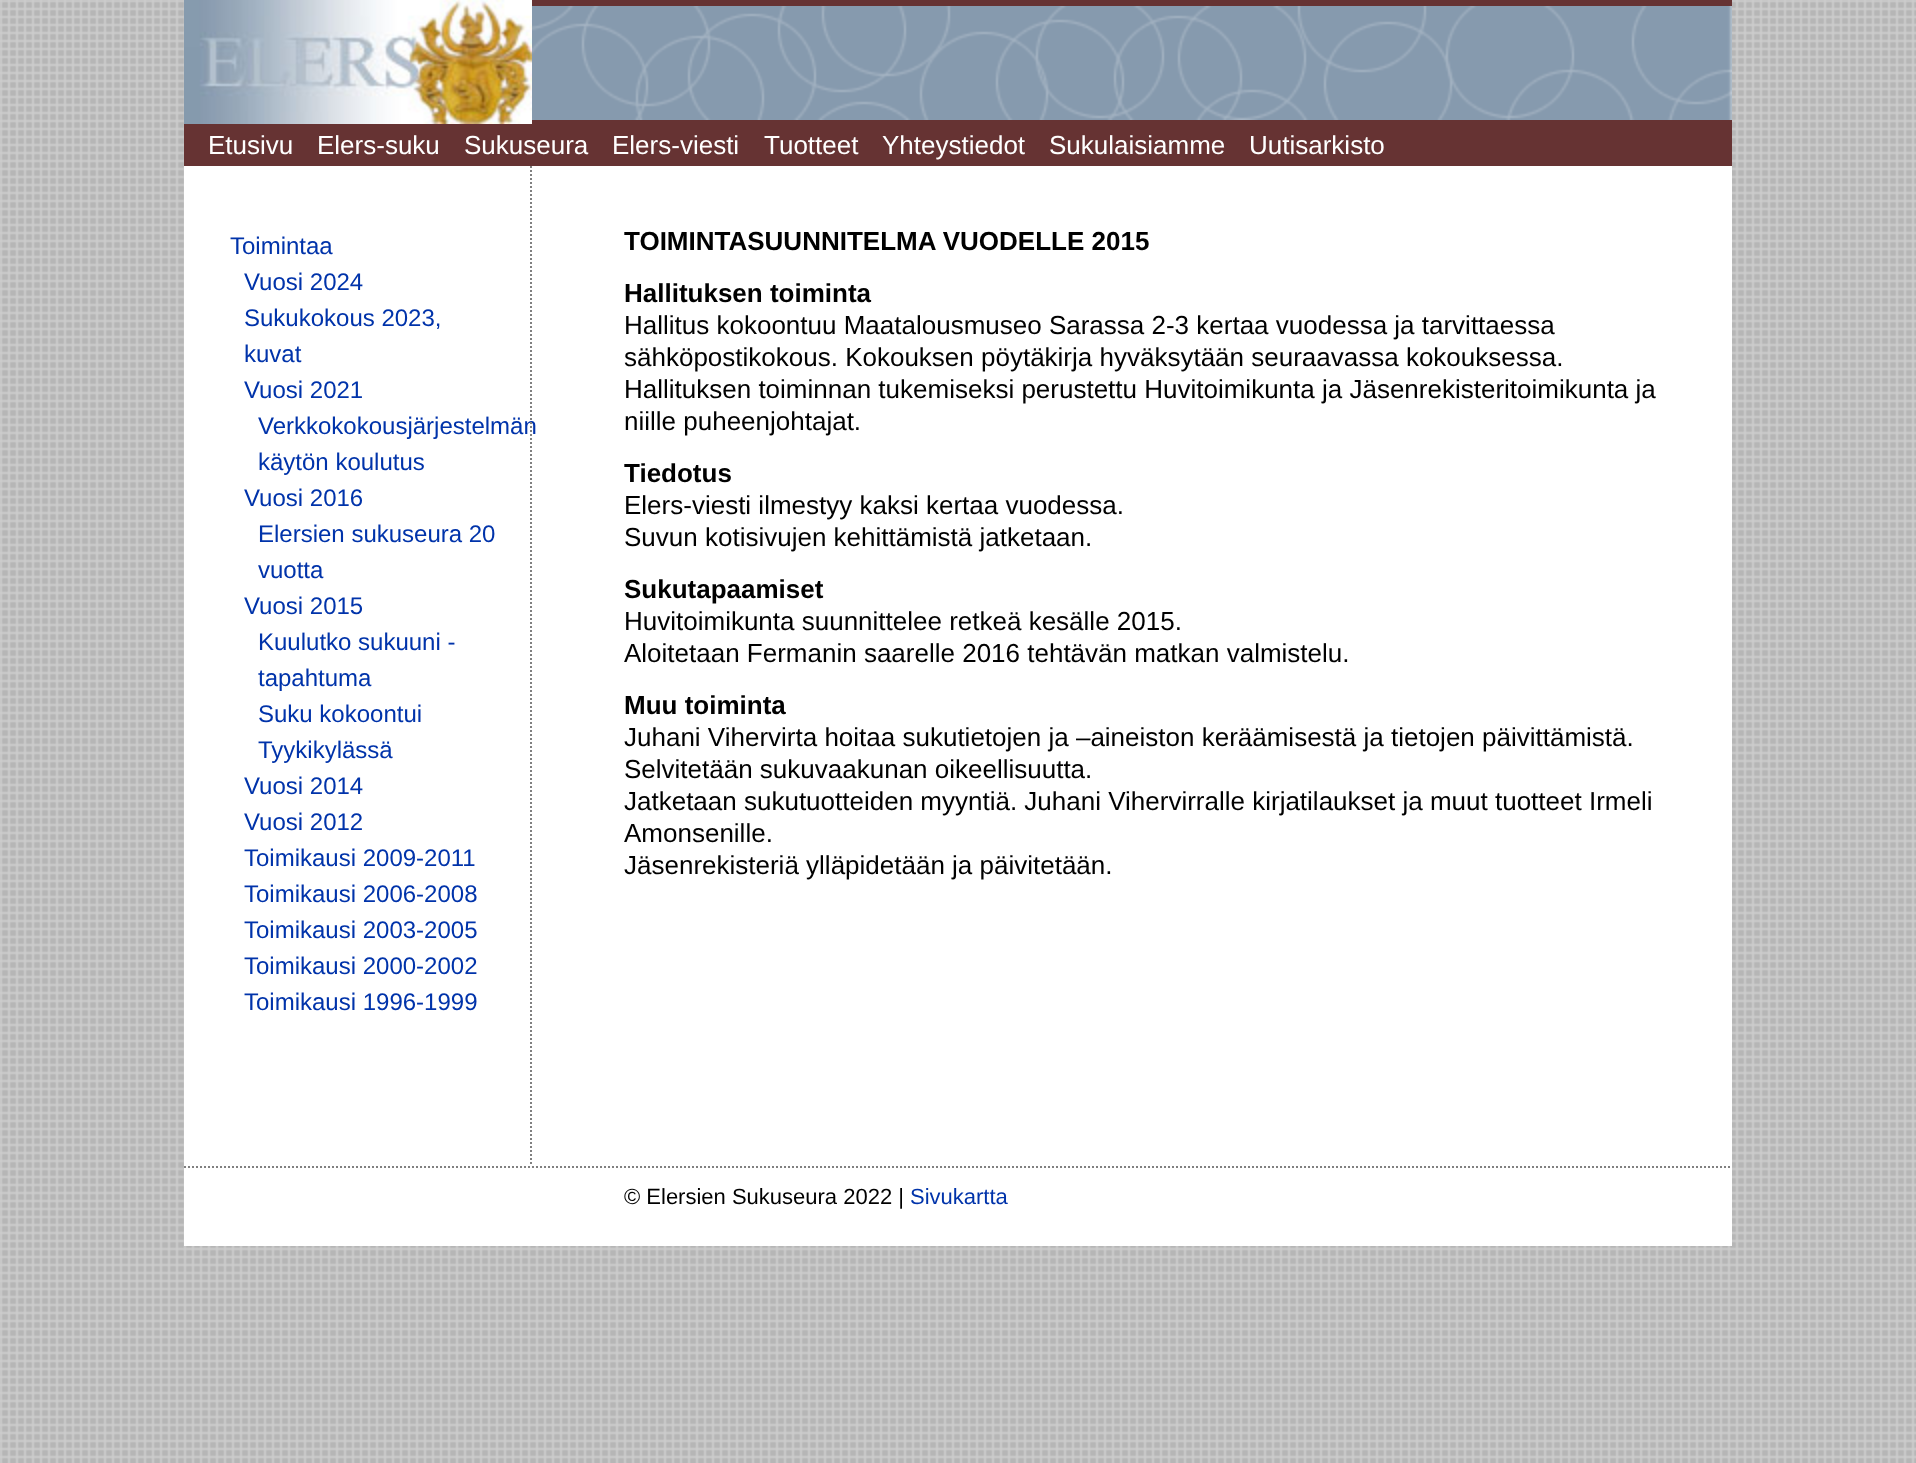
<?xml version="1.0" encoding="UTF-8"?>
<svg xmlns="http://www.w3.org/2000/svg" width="1916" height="1463">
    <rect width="100%" height="100%" fill="#FFFFFF"/>
    <image x="0" y="0" width="1916" height="1463" href="img_01.png"/>
    <rect x="184" y="166" width="1548" height="1080" fill="#FFFFFF"/>
    <rect x="532" y="0" width="1200" height="124" fill="#663333"/>
    <image x="532" y="6" width="1200" height="114" href="img_02.png"/>
    <image x="184" y="0" width="348" height="124" href="img_03.png"/>
    <rect x="184" y="124" width="1548" height="42" fill="#663333"/>
    <text x="208" y="154" font-family="Liberation Sans" font-size="26" fill="#FFFFFF">Etusivu</text>
    <text x="317" y="154" font-family="Liberation Sans" font-size="26" fill="#FFFFFF">Elers-suku</text>
    <text x="464" y="154" font-family="Liberation Sans" font-size="26" fill="#FFFFFF">Sukuseura</text>
    <text x="612" y="154" font-family="Liberation Sans" font-size="26" fill="#FFFFFF">Elers-viesti</text>
    <text x="764" y="154" font-family="Liberation Sans" font-size="26" fill="#FFFFFF">Tuotteet</text>
    <text x="882" y="154" font-family="Liberation Sans" font-size="26" fill="#FFFFFF">Yhteystiedot</text>
    <text x="1049" y="154" font-family="Liberation Sans" font-size="26" fill="#FFFFFF">Sukulaisiamme</text>
    <text x="1249" y="154" font-family="Liberation Sans" font-size="26" fill="#FFFFFF">Uutisarkisto</text>
    <text x="230" y="254" font-family="Liberation Sans" font-size="24" fill="#0033AA">Toimintaa</text>
    <text font-family="Liberation Sans" font-size="24" fill="#0033AA">
        <tspan x="244" y="290">Vuosi 2024</tspan>
        <tspan x="244" y="326">Sukukokous 2023,</tspan>
        <tspan x="244" y="362">kuvat</tspan>
        <tspan x="244" y="398">Vuosi 2021</tspan>
    </text>
    <text font-family="Liberation Sans" font-size="24" fill="#0033AA">
        <tspan x="258" y="434">Verkkokokousjärjestelmän</tspan>
        <tspan x="258" y="470">käytön koulutus</tspan>
    </text>
    <text x="244" y="506" font-family="Liberation Sans" font-size="24" fill="#0033AA">Vuosi 2016</text>
    <text font-family="Liberation Sans" font-size="24" fill="#0033AA">
        <tspan x="258" y="542">Elersien sukuseura 20</tspan>
        <tspan x="258" y="578">vuotta</tspan>
    </text>
    <text x="244" y="614" font-family="Liberation Sans" font-size="24" fill="#0033AA">Vuosi 2015</text>
    <text font-family="Liberation Sans" font-size="24" fill="#0033AA">
        <tspan x="258" y="650">Kuulutko sukuuni -</tspan>
        <tspan x="258" y="686">tapahtuma</tspan>
        <tspan x="258" y="722">Suku kokoontui</tspan>
        <tspan x="258" y="758">Tyykikylässä</tspan>
    </text>
    <text font-family="Liberation Sans" font-size="24" fill="#0033AA">
        <tspan x="244" y="794">Vuosi 2014</tspan>
        <tspan x="244" y="830">Vuosi 2012</tspan>
        <tspan x="244" y="866">Toimikausi 2009-2011</tspan>
        <tspan x="244" y="902">Toimikausi 2006-2008</tspan>
        <tspan x="244" y="938">Toimikausi 2003-2005</tspan>
        <tspan x="244" y="974">Toimikausi 2000-2002</tspan>
        <tspan x="244" y="1010">Toimikausi 1996-1999</tspan>
    </text>
    <path d="M 531 166 V 1166" fill="none" stroke="#808080" stroke-width="2" stroke-dasharray="2 2"/>
    <text x="624" y="250" font-family="Liberation Sans" font-size="26" font-weight="700" fill="#000000">TOIMINTASUUNNITELMA VUODELLE 2015</text>
    <text x="624" y="302" font-family="Liberation Sans" font-size="26" font-weight="700" fill="#000000">Hallituksen toiminta</text>
    <text font-family="Liberation Sans" font-size="26" fill="#000000">
        <tspan x="624" y="334">Hallitus kokoontuu Maatalousmuseo Sarassa 2-3 kertaa vuodessa ja tarvittaessa</tspan>
        <tspan x="624" y="366">sähköpostikokous. Kokouksen pöytäkirja hyväksytään seuraavassa kokouksessa.</tspan>
        <tspan x="624" y="398">Hallituksen toiminnan tukemiseksi perustettu Huvitoimikunta ja Jäsenrekisteritoimikunta ja</tspan>
        <tspan x="624" y="430">niille puheenjohtajat.</tspan>
    </text>
    <text x="624" y="482" font-family="Liberation Sans" font-size="26" font-weight="700" fill="#000000">Tiedotus</text>
    <text font-family="Liberation Sans" font-size="26" fill="#000000">
        <tspan x="624" y="514">Elers-viesti ilmestyy kaksi kertaa vuodessa.</tspan>
        <tspan x="624" y="546">Suvun kotisivujen kehittämistä jatketaan.</tspan>
    </text>
    <text x="624" y="598" font-family="Liberation Sans" font-size="26" font-weight="700" fill="#000000">Sukutapaamiset</text>
    <text font-family="Liberation Sans" font-size="26" fill="#000000">
        <tspan x="624" y="630">Huvitoimikunta suunnittelee retkeä kesälle 2015.</tspan>
        <tspan x="624" y="662">Aloitetaan Fermanin saarelle 2016 tehtävän matkan valmistelu.</tspan>
    </text>
    <text x="624" y="714" font-family="Liberation Sans" font-size="26" font-weight="700" fill="#000000">Muu toiminta</text>
    <text font-family="Liberation Sans" font-size="26" fill="#000000">
        <tspan x="624" y="746">Juhani Vihervirta hoitaa sukutietojen ja –aineiston keräämisestä ja tietojen päivittämistä.</tspan>
        <tspan x="624" y="778">Selvitetään sukuvaakunan oikeellisuutta.</tspan>
        <tspan x="624" y="810">Jatketaan sukutuotteiden myyntiä. Juhani Vihervirralle kirjatilaukset ja muut tuotteet Irmeli</tspan>
        <tspan x="624" y="842">Amonsenille.</tspan>
        <tspan x="624" y="874">Jäsenrekisteriä ylläpidetään ja päivitetään.</tspan>
    </text>
    <path d="M 184 1167 H 1732" fill="none" stroke="#808080" stroke-width="2" stroke-dasharray="2 2"/>
    <text x="624" y="1204" font-family="Liberation Sans" font-size="22" fill="#000000">© Elersien Sukuseura 2022 |</text>
    <text x="910" y="1204" font-family="Liberation Sans" font-size="22" fill="#0033AA">Sivukartta</text>
</svg>
